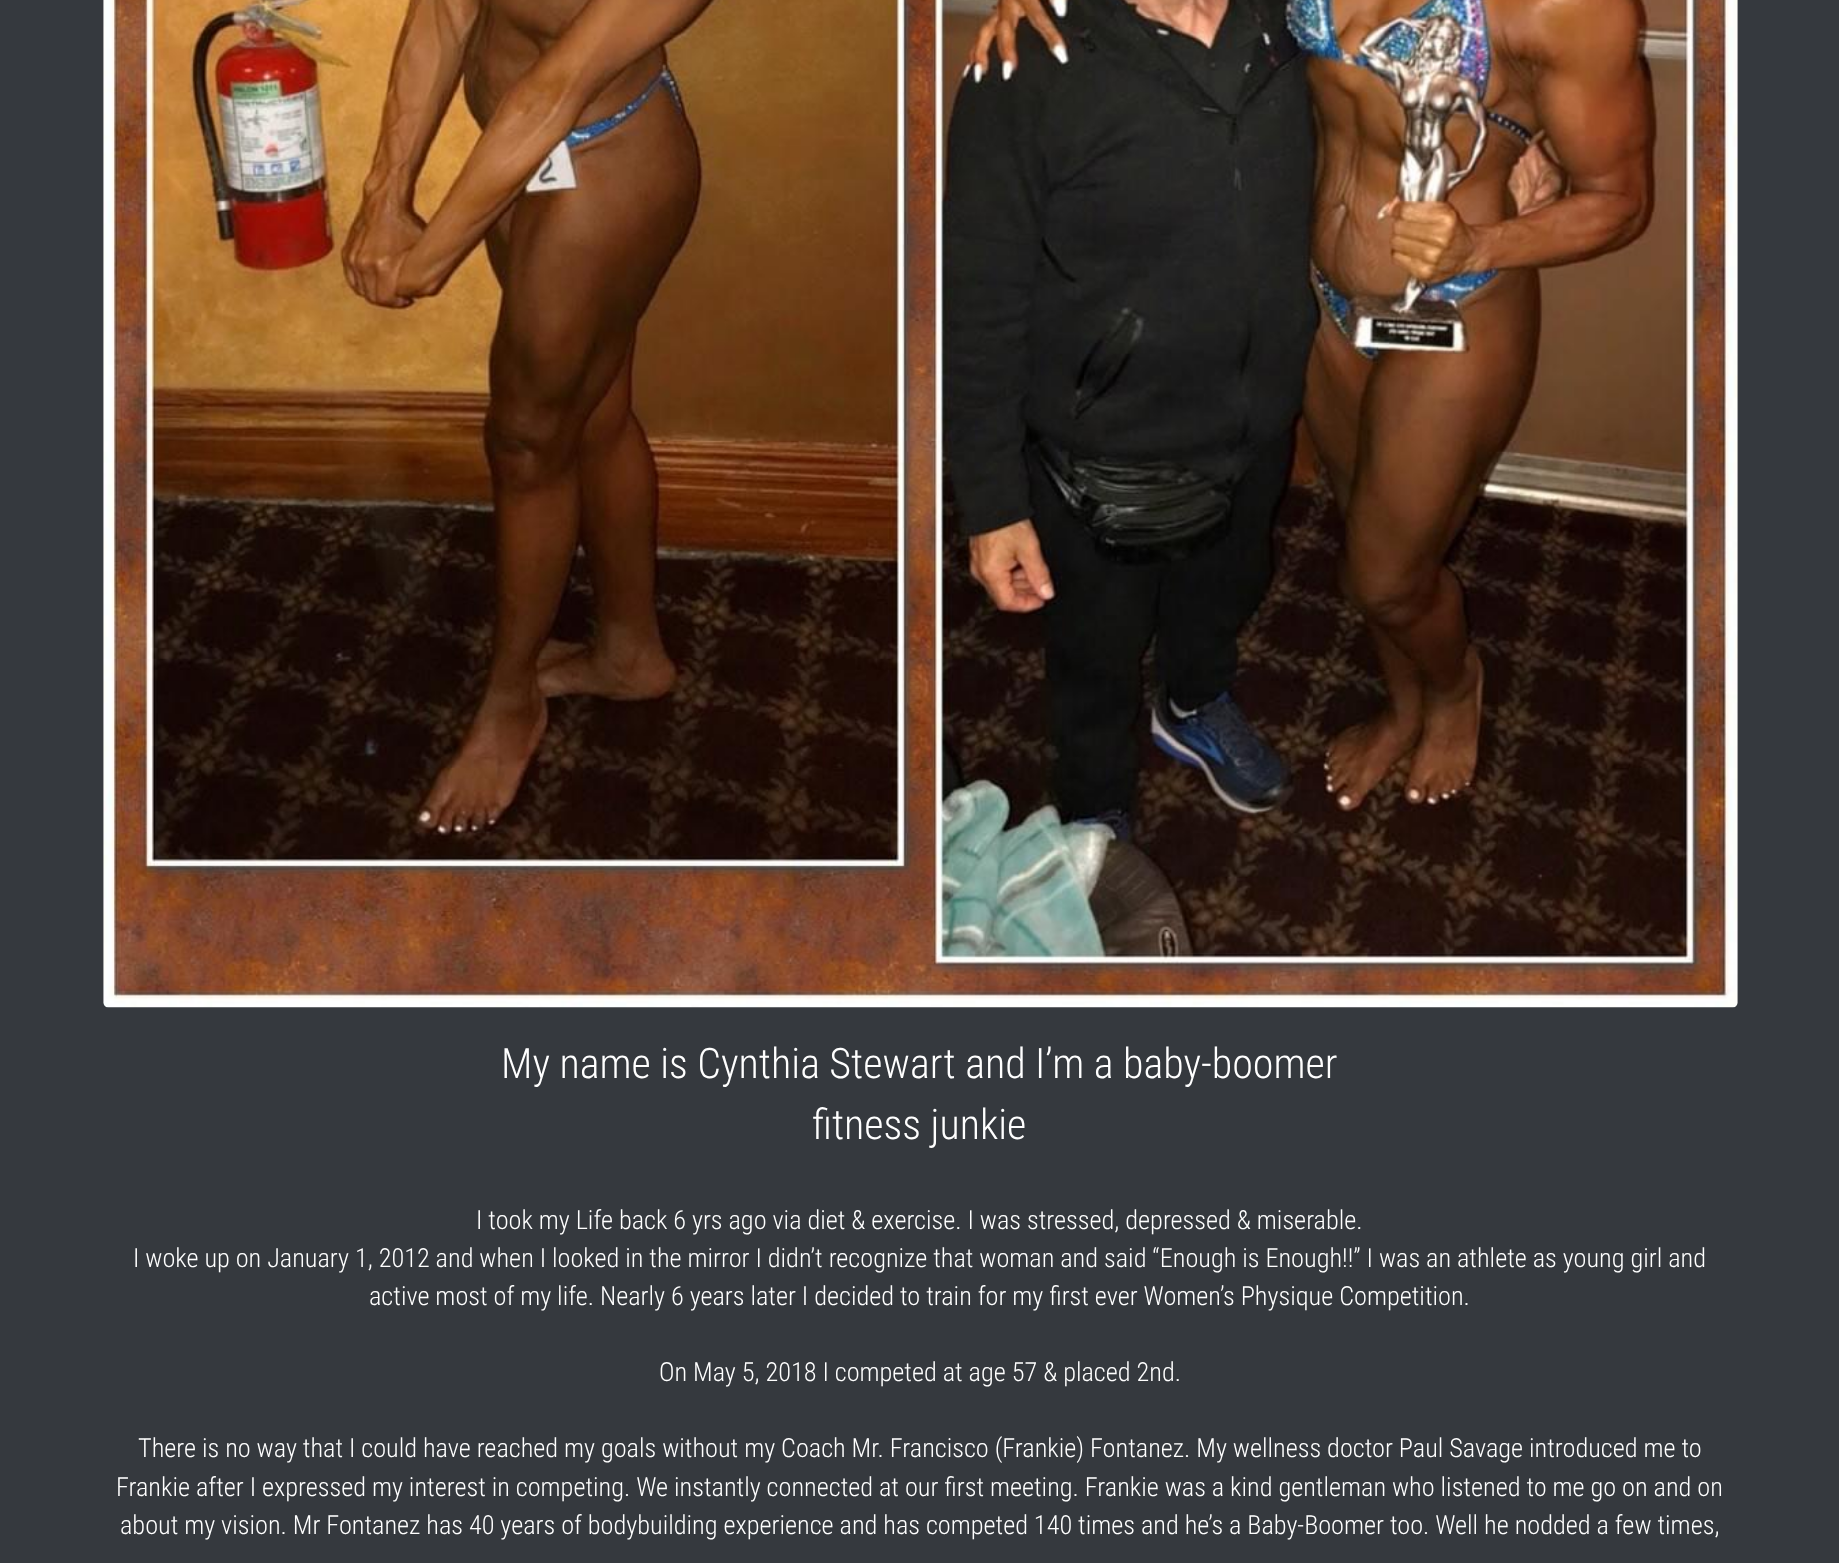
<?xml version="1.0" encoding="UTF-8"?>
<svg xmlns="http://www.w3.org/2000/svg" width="1839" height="1563">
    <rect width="100%" height="100%" fill="#35393E"/>
    <image x="103" y="0" width="1635" height="1008" href="img_01.png"/>
    <text x="501" y="1078" font-family="Roboto Condensed" font-size="42" font-weight="300" fill="#FFFFFF">My name is Cynthia Stewart and I’m a baby-boomer</text>
    <text x="812" y="1139" font-family="Roboto Condensed" font-size="42" font-weight="300" fill="#FFFFFF">fitness junkie</text>
    <text x="476" y="1229" font-family="Roboto Condensed" font-size="26.25" font-weight="300" fill="#FFFFFF">I took my Life back 6 yrs ago via diet &amp; exercise. I was stressed, depressed &amp; miserable.</text>
    <text x="133" y="1267" font-family="Roboto Condensed" font-size="26.25" font-weight="300" fill="#FFFFFF">I woke up on January 1, 2012 and when I looked in the mirror I didn’t recognize that woman and said “Enough is Enough!!” I was an athlete as young girl and</text>
    <text x="369" y="1305" font-family="Roboto Condensed" font-size="26.25" font-weight="300" fill="#FFFFFF">active most of my life. Nearly 6 years later I decided to train for my first ever Women’s Physique Competition.</text>
    <text x="659" y="1381" font-family="Roboto Condensed" font-size="26.25" font-weight="300" fill="#FFFFFF">On May 5, 2018 I competed at age 57 &amp; placed 2nd.</text>
    <text x="138" y="1457" font-family="Roboto Condensed" font-size="26.25" font-weight="300" fill="#FFFFFF">There is no way that I could have reached my goals without my Coach Mr. Francisco (Frankie) Fontanez. My wellness doctor Paul Savage introduced me to</text>
    <text x="116" y="1496" font-family="Roboto Condensed" font-size="26.25" font-weight="300" fill="#FFFFFF">Frankie after I expressed my interest in competing. We instantly connected at our first meeting. Frankie was a kind gentleman who listened to me go on and on</text>
    <text x="120" y="1534" font-family="Roboto Condensed" font-size="26.25" font-weight="300" fill="#FFFFFF">about my vision. Mr Fontanez has 40 years of bodybuilding experience and has competed 140 times and he’s a Baby-Boomer too. Well he nodded a few times,</text>
</svg>
